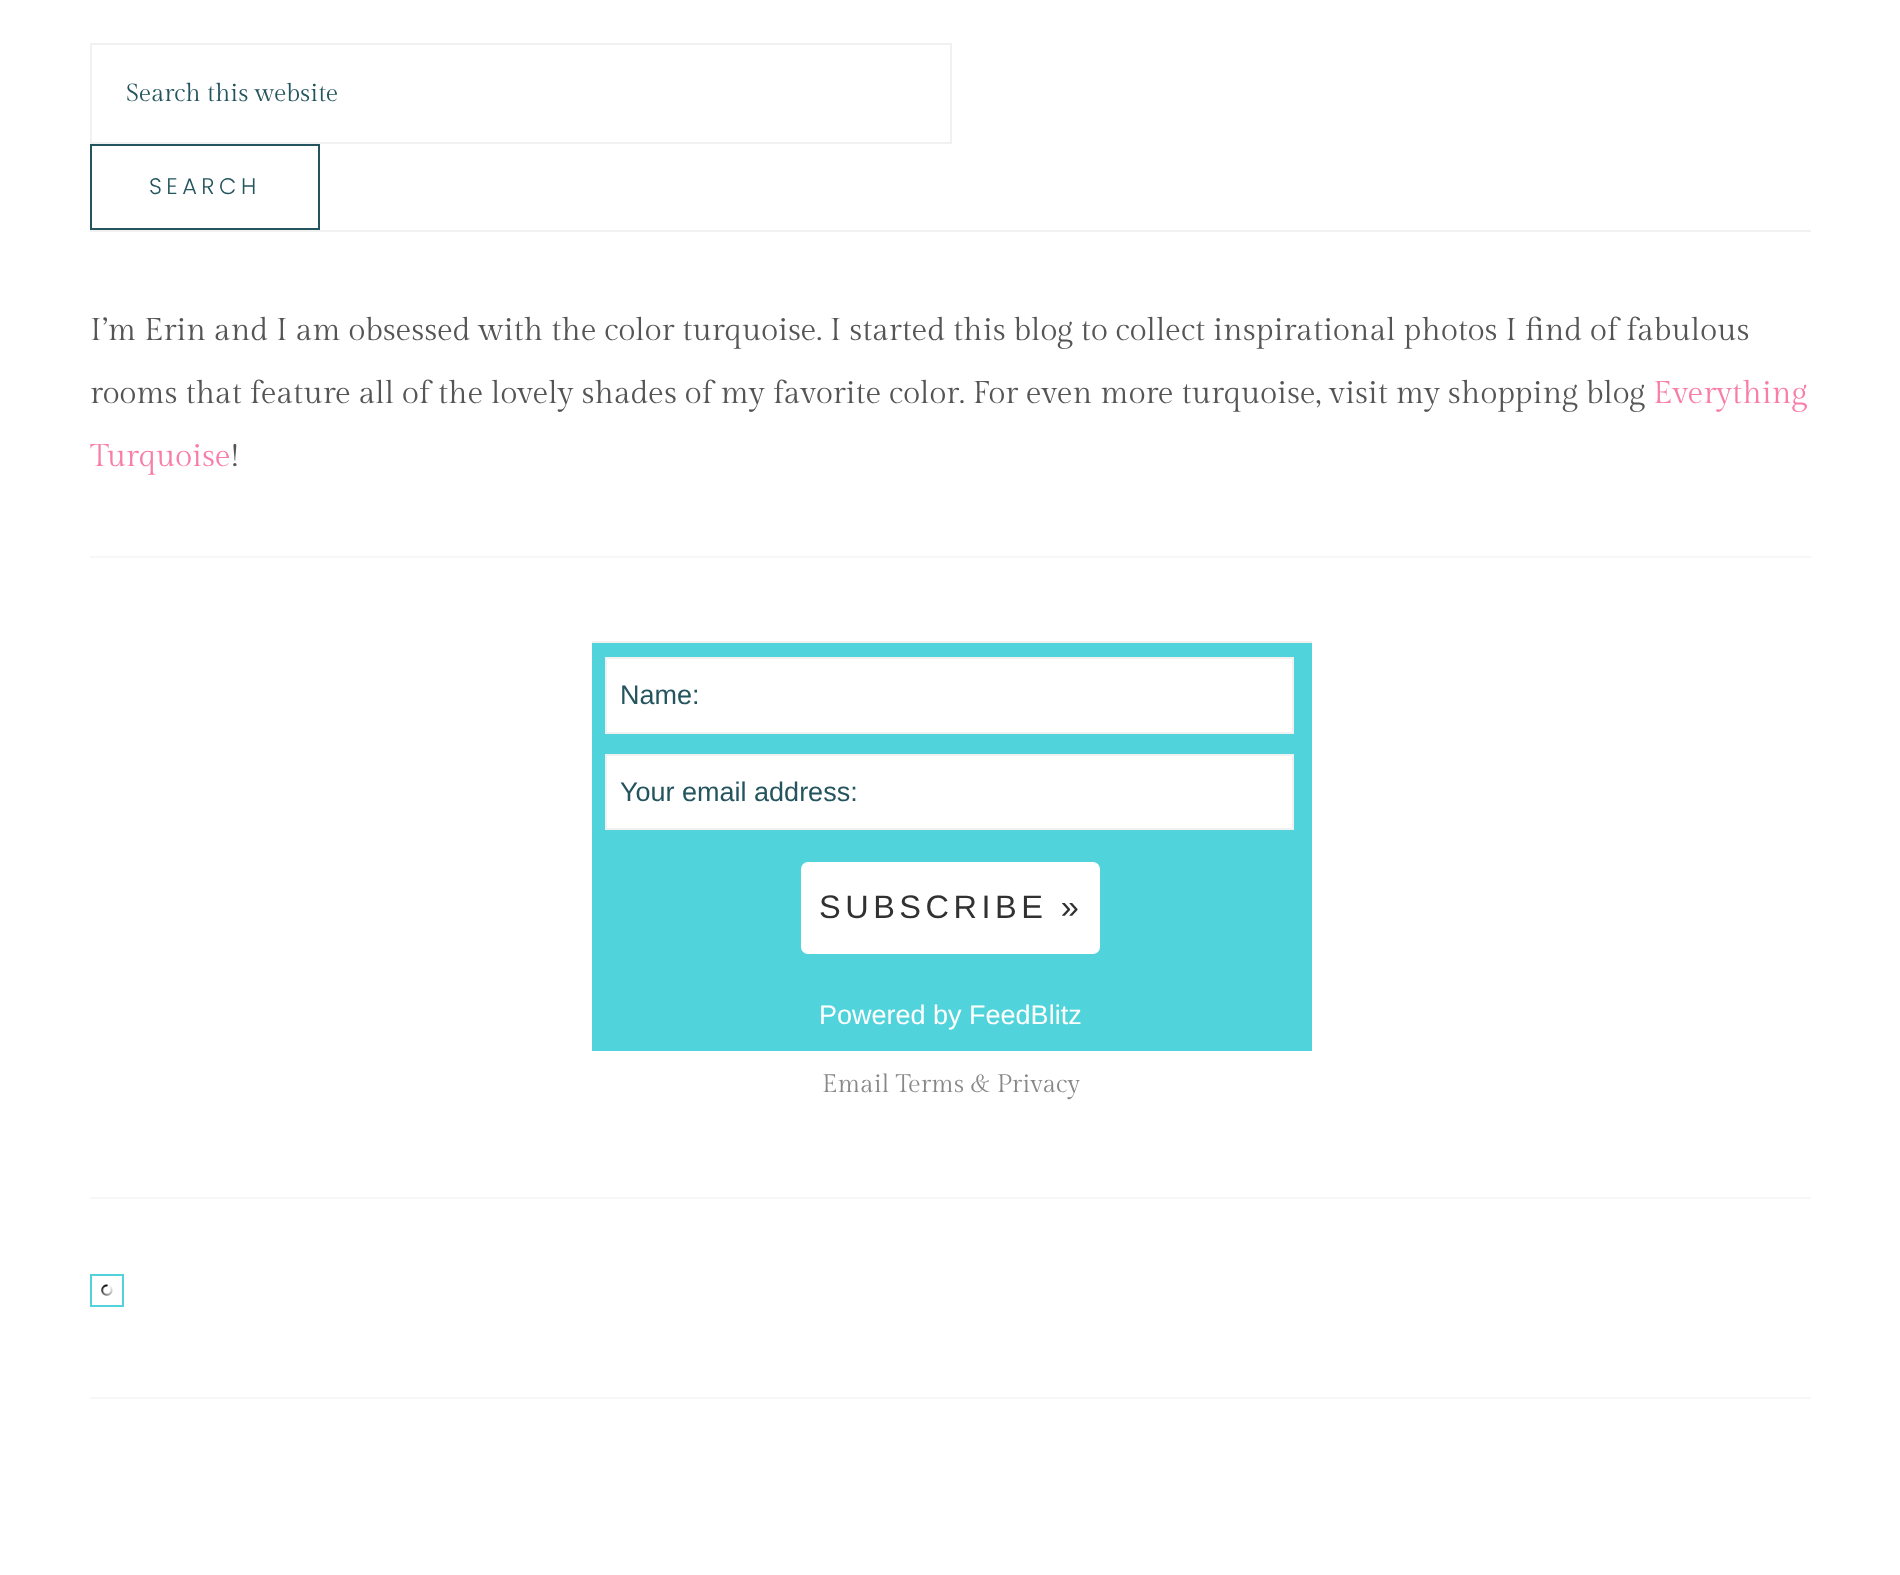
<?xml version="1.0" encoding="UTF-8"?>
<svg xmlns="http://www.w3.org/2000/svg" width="1900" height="1575">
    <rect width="100%" height="100%" fill="#FFFFFF"/>
    <rect x="90" y="230" width="1721" height="2" fill="#F2F1F1"/>
    <rect x="91" y="44" width="860" height="99" fill="none" stroke="#F2F1F1" stroke-width="2"/>
    <text x="126" y="101" font-family="Gilda Display" font-size="24.75" fill="#24555E">Search this website</text>
    <rect x="91" y="145" width="228" height="84" fill="none" stroke="#24555E" stroke-width="2"/>
    <text x="149" y="194" font-family="Poppins" font-size="22.5" font-weight="300" letter-spacing="4.5" fill="#24555E">SEARCH</text>
    <rect x="90" y="556" width="1721" height="2" fill="#F7F7F7"/>
    <text x="90" y="340" font-family="Gilda Display" font-size="31.5" fill="#555555">I’m Erin and I am obsessed with the color turquoise. I started this blog to collect inspirational photos I find of fabulous</text>
    <text x="90" y="403" font-family="Gilda Display" font-size="31.5" fill="#555555">rooms that feature all of the lovely shades of my favorite color. For even more turquoise, visit my shopping blog</text>
    <text x="1653" y="403" font-family="Gilda Display" font-size="31.5" fill="#F87DA9">Everything</text>
    <text x="90" y="466" font-family="Gilda Display" font-size="31.5" fill="#F87DA9">Turquoise</text>
    <text x="231" y="466" font-family="Gilda Display" font-size="31.5" fill="#555555">!</text>
    <rect x="90" y="1197" width="1721" height="2" fill="#F7F7F7"/>
    <rect x="592" y="643" width="720" height="408" fill="#50D3DB"/>
    <rect x="592" y="641" width="720" height="2" fill="#F2F1F1"/>
    <rect x="606" y="658" width="687" height="75" fill="#FFFFFF" stroke="#F2F1F1" stroke-width="2"/>
    <text x="620" y="704" font-family="Liberation Sans" font-size="27" fill="#24555E">Name:</text>
    <rect x="606" y="755" width="687" height="74" fill="#FFFFFF" stroke="#F2F1F1" stroke-width="2"/>
    <text x="620" y="801" font-family="Liberation Sans" font-size="27" fill="#24555E">Your email address:</text>
    <rect x="802" y="863" width="297" height="90" rx="6" fill="#FFFFFF" stroke="#FFFFFF" stroke-width="2"/>
    <text x="819" y="918" font-family="Liberation Sans" font-size="32.5" letter-spacing="4.5" fill="#313131">SUBSCRIBE »</text>
    <text x="819" y="1024" font-family="Liberation Sans" font-size="27" fill="#FFFFFF">Powered by FeedBlitz</text>
    <text x="822" y="1092" font-family="Gilda Display" font-size="25.25" fill="#888888">Email Terms &amp; Privacy</text>
    <rect x="90" y="1397" width="1721" height="2" fill="#F7F7F7"/>
    <rect x="91" y="1275" width="32" height="31" fill="none" stroke="#52D2DB" stroke-width="2"/>
    <image x="101" y="1284" width="12" height="12" href="img_01.png"/>
</svg>
